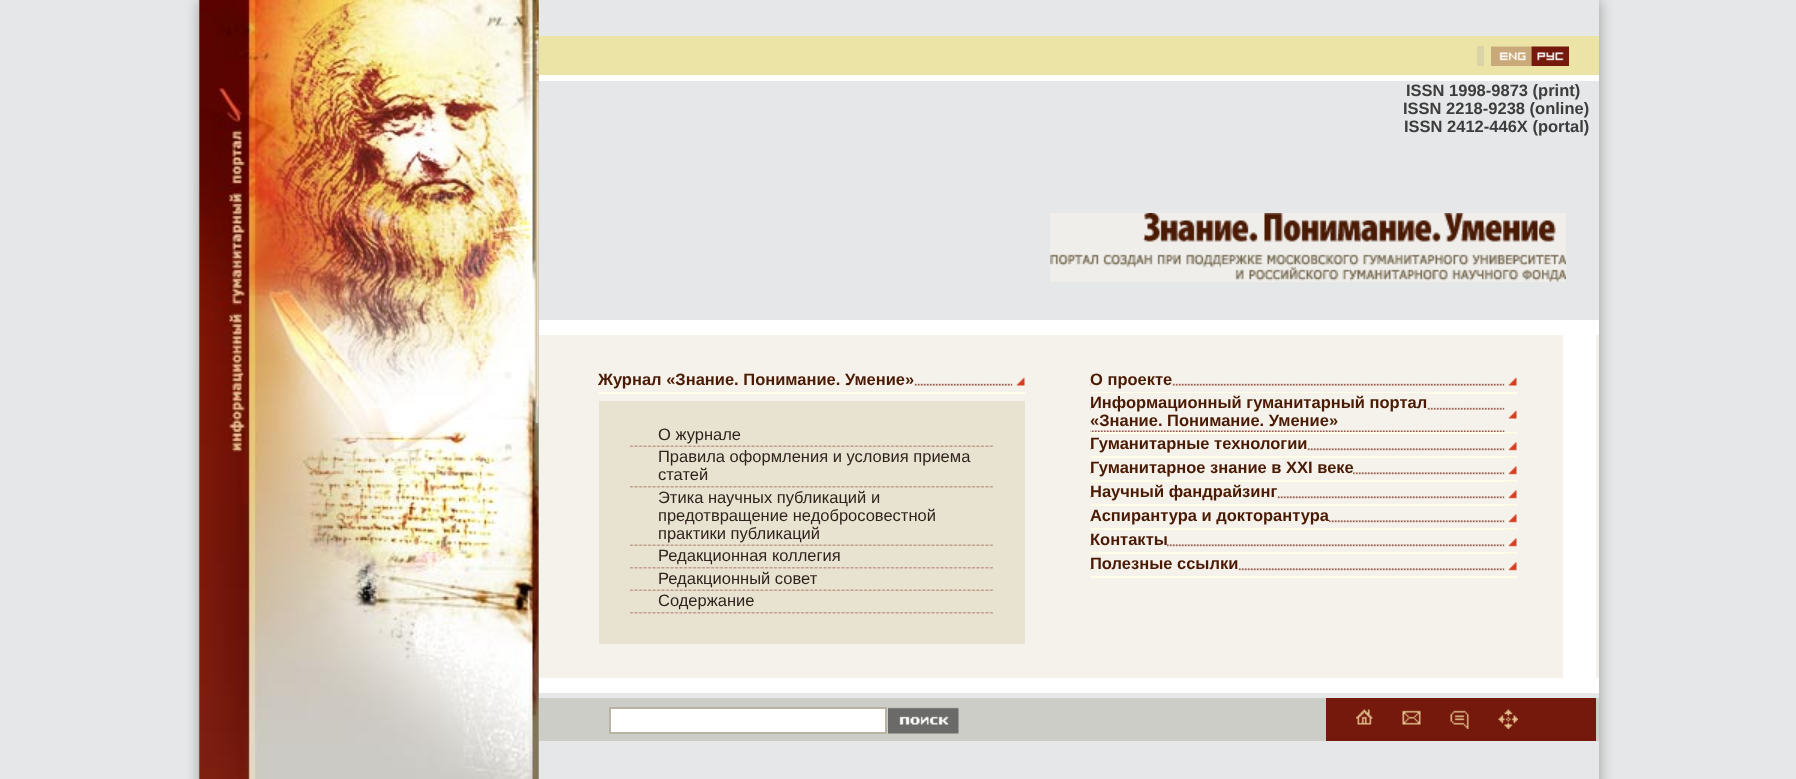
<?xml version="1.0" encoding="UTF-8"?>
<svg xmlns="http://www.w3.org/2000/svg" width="1796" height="779">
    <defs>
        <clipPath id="clip1"><path d="M 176 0 H 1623 V 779 H 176 Z M 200 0 H 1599 V 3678 H 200 Z" clip-rule="evenodd"/></clipPath>
        <filter id="blur1" x="-50%" y="-200%" width="200%" height="500%"><feGaussianBlur stdDeviation="7.5"/></filter>
    </defs>
    <rect width="100%" height="100%" fill="#E6E7E8"/>
    <g clip-path="url(#clip1)">
        <rect x="200" y="0" width="1399" height="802" fill="#999999" filter="url(#blur1)"/>
    </g>
    <image x="199" y="0" width="340" height="779" href="img_01.png"/>
    <image x="199" y="0" width="340" height="779" href="img_02.png"/>
    <image x="217" y="87" width="28" height="365" href="img_03.png"/>
    <rect x="539" y="36" width="1060" height="39" fill="#ECE4A6"/>
    <rect x="1477" y="46" width="7" height="20" fill="#DAD3A6"/>
    <image x="1491" y="46" width="41" height="20" href="img_04.png"/>
    <image x="1531" y="46" width="38" height="20" href="img_05.png"/>
    <rect x="539" y="75" width="1060" height="6" fill="#FFFFFF"/>
    <text x="1406" y="96" font-family="Liberation Sans" font-size="16.5" font-weight="700" fill="#3D3D3D">ISSN 1998-9873 (print)</text>
    <text x="1403" y="114" font-family="Liberation Sans" font-size="16.5" font-weight="700" fill="#3D3D3D">ISSN 2218-9238 (online)</text>
    <text x="1404" y="132" font-family="Liberation Sans" font-size="16.5" font-weight="700" fill="#3D3D3D">ISSN 2412-446X (portal)</text>
    <image x="1050" y="213" width="516" height="69" href="img_06.png"/>
    <rect x="539" y="320" width="1060" height="15" fill="#FFFFFF"/>
    <rect x="539" y="335" width="1060" height="343" fill="#F4F2EA"/>
    <image x="598" y="383" width="415" height="3" href="img_07.png"/>
    <rect x="599" y="383" width="315" height="3" fill="#F4F2EA"/>
    <text x="598" y="385" font-family="Liberation Sans" font-size="16.5" font-weight="700" fill="#4A1A04">Журнал «Знание. Понимание. Умение»</text>
    <image x="1012" y="377" width="13" height="9" href="img_08.png"/>
    <rect x="599" y="392" width="426" height="2" fill="#FFFFE8"/>
    <rect x="599" y="401" width="426" height="243" fill="#E8E3D0"/>
    <text x="658" y="440" font-family="Liberation Sans" font-size="16.5" fill="#30231D">О журнале</text>
    <image x="630" y="445" width="363" height="2" href="img_09.png"/>
    <text font-family="Liberation Sans" font-size="16.5" fill="#30231D">
        <tspan x="658" y="462">Правила оформления и условия приема</tspan>
        <tspan x="658" y="480">статей</tspan>
    </text>
    <image x="630" y="486" width="363" height="2" href="img_10.png"/>
    <text font-family="Liberation Sans" font-size="16.5" fill="#30231D">
        <tspan x="658" y="503">Этика научных публикаций и</tspan>
        <tspan x="658" y="521">предотвращение недобросовестной</tspan>
        <tspan x="658" y="539">практики публикаций</tspan>
    </text>
    <image x="630" y="544" width="363" height="2" href="img_09.png"/>
    <text x="658" y="561" font-family="Liberation Sans" font-size="16.5" fill="#30231D">Редакционная коллегия</text>
    <image x="630" y="567" width="363" height="2" href="img_10.png"/>
    <text x="658" y="584" font-family="Liberation Sans" font-size="16.5" fill="#30231D">Редакционный совет</text>
    <image x="630" y="589" width="363" height="2" href="img_09.png"/>
    <text x="658" y="606" font-family="Liberation Sans" font-size="16.5" fill="#30231D">Содержание</text>
    <image x="630" y="612" width="363" height="2" href="img_10.png"/>
    <image x="1090" y="383" width="415" height="3" href="img_07.png"/>
    <rect x="1091" y="383" width="81" height="3" fill="#F4F2EA"/>
    <text x="1090" y="385" font-family="Liberation Sans" font-size="16.5" font-weight="700" fill="#4A1A04">О проекте</text>
    <image x="1504" y="377" width="13" height="9" href="img_11.png"/>
    <rect x="1091" y="392" width="426" height="2" fill="#FFFFE8"/>
    <image x="1090" y="407" width="415" height="25" href="img_12.png"/>
    <rect x="1091" y="393" width="336" height="17" fill="#F4F2EA"/>
    <text font-family="Liberation Sans" font-size="16.5" font-weight="700" fill="#4A1A04">
        <tspan x="1090" y="408">Информационный гуманитарный портал</tspan>
        <tspan x="1090" y="426">«Знание. Понимание. Умение»</tspan>
    </text>
    <image x="1504" y="408" width="13" height="11" href="img_13.png"/>
    <rect x="1091" y="432" width="426" height="2" fill="#FFFFE8"/>
    <image x="1090" y="448" width="415" height="3" href="img_14.png"/>
    <rect x="1091" y="448" width="216" height="3" fill="#F4F2EA"/>
    <text x="1090" y="449" font-family="Liberation Sans" font-size="16.5" font-weight="700" fill="#4A1A04">Гуманитарные технологии</text>
    <image x="1504" y="433" width="13" height="18" href="img_15.png"/>
    <rect x="1091" y="456" width="426" height="2" fill="#FFFFE8"/>
    <image x="1090" y="472" width="415" height="3" href="img_14.png"/>
    <rect x="1091" y="472" width="262" height="3" fill="#F4F2EA"/>
    <text x="1090" y="473" font-family="Liberation Sans" font-size="16.5" font-weight="700" fill="#4A1A04">Гуманитарное знание в XXI веке</text>
    <image x="1504" y="457" width="13" height="18" href="img_15.png"/>
    <rect x="1091" y="480" width="426" height="2" fill="#FFFFE8"/>
    <image x="1090" y="496" width="415" height="3" href="img_14.png"/>
    <rect x="1091" y="496" width="186" height="3" fill="#F4F2EA"/>
    <text x="1090" y="497" font-family="Liberation Sans" font-size="16.5" font-weight="700" fill="#4A1A04">Научный фандрайзинг</text>
    <image x="1504" y="481" width="13" height="18" href="img_15.png"/>
    <rect x="1091" y="504" width="426" height="2" fill="#FFFFE8"/>
    <image x="1090" y="520" width="415" height="3" href="img_14.png"/>
    <rect x="1091" y="520" width="238" height="3" fill="#F4F2EA"/>
    <text x="1090" y="521" font-family="Liberation Sans" font-size="16.5" font-weight="700" fill="#4A1A04">Аспирантура и докторантура</text>
    <image x="1504" y="505" width="13" height="18" href="img_15.png"/>
    <rect x="1091" y="528" width="426" height="2" fill="#FFFFE8"/>
    <image x="1090" y="544" width="415" height="3" href="img_14.png"/>
    <rect x="1091" y="544" width="76" height="3" fill="#F4F2EA"/>
    <text x="1090" y="545" font-family="Liberation Sans" font-size="16.5" font-weight="700" fill="#4A1A04">Контакты</text>
    <image x="1504" y="529" width="13" height="18" href="img_15.png"/>
    <rect x="1091" y="552" width="426" height="2" fill="#FFFFE8"/>
    <image x="1090" y="568" width="415" height="3" href="img_14.png"/>
    <rect x="1091" y="568" width="147" height="3" fill="#F4F2EA"/>
    <text x="1090" y="569" font-family="Liberation Sans" font-size="16.5" font-weight="700" fill="#4A1A04">Полезные ссылки</text>
    <image x="1504" y="553" width="13" height="18" href="img_15.png"/>
    <rect x="1091" y="576" width="426" height="2" fill="#FFFFE8"/>
    <rect x="1563" y="335" width="33" height="343" fill="#FFFFFF"/>
    <rect x="539" y="678" width="1060" height="15" fill="#FFFFFF"/>
    <rect x="539" y="698" width="1060" height="43" fill="#CDCDC8"/>
    <rect x="610" y="708" width="276" height="25" fill="#FFFFFF" stroke="#B8B3A2" stroke-width="2"/>
    <image x="888" y="707" width="71" height="27" href="img_16.png"/>
    <rect x="1326" y="698" width="270" height="43" fill="#75190D"/>
    <image x="1356" y="709" width="17" height="16" href="img_17.png"/>
    <image x="1402" y="710" width="19" height="15" href="img_18.png"/>
    <image x="1450" y="710" width="19" height="19" href="img_19.png"/>
    <image x="1498" y="709" width="20" height="20" href="img_20.png"/>
</svg>
